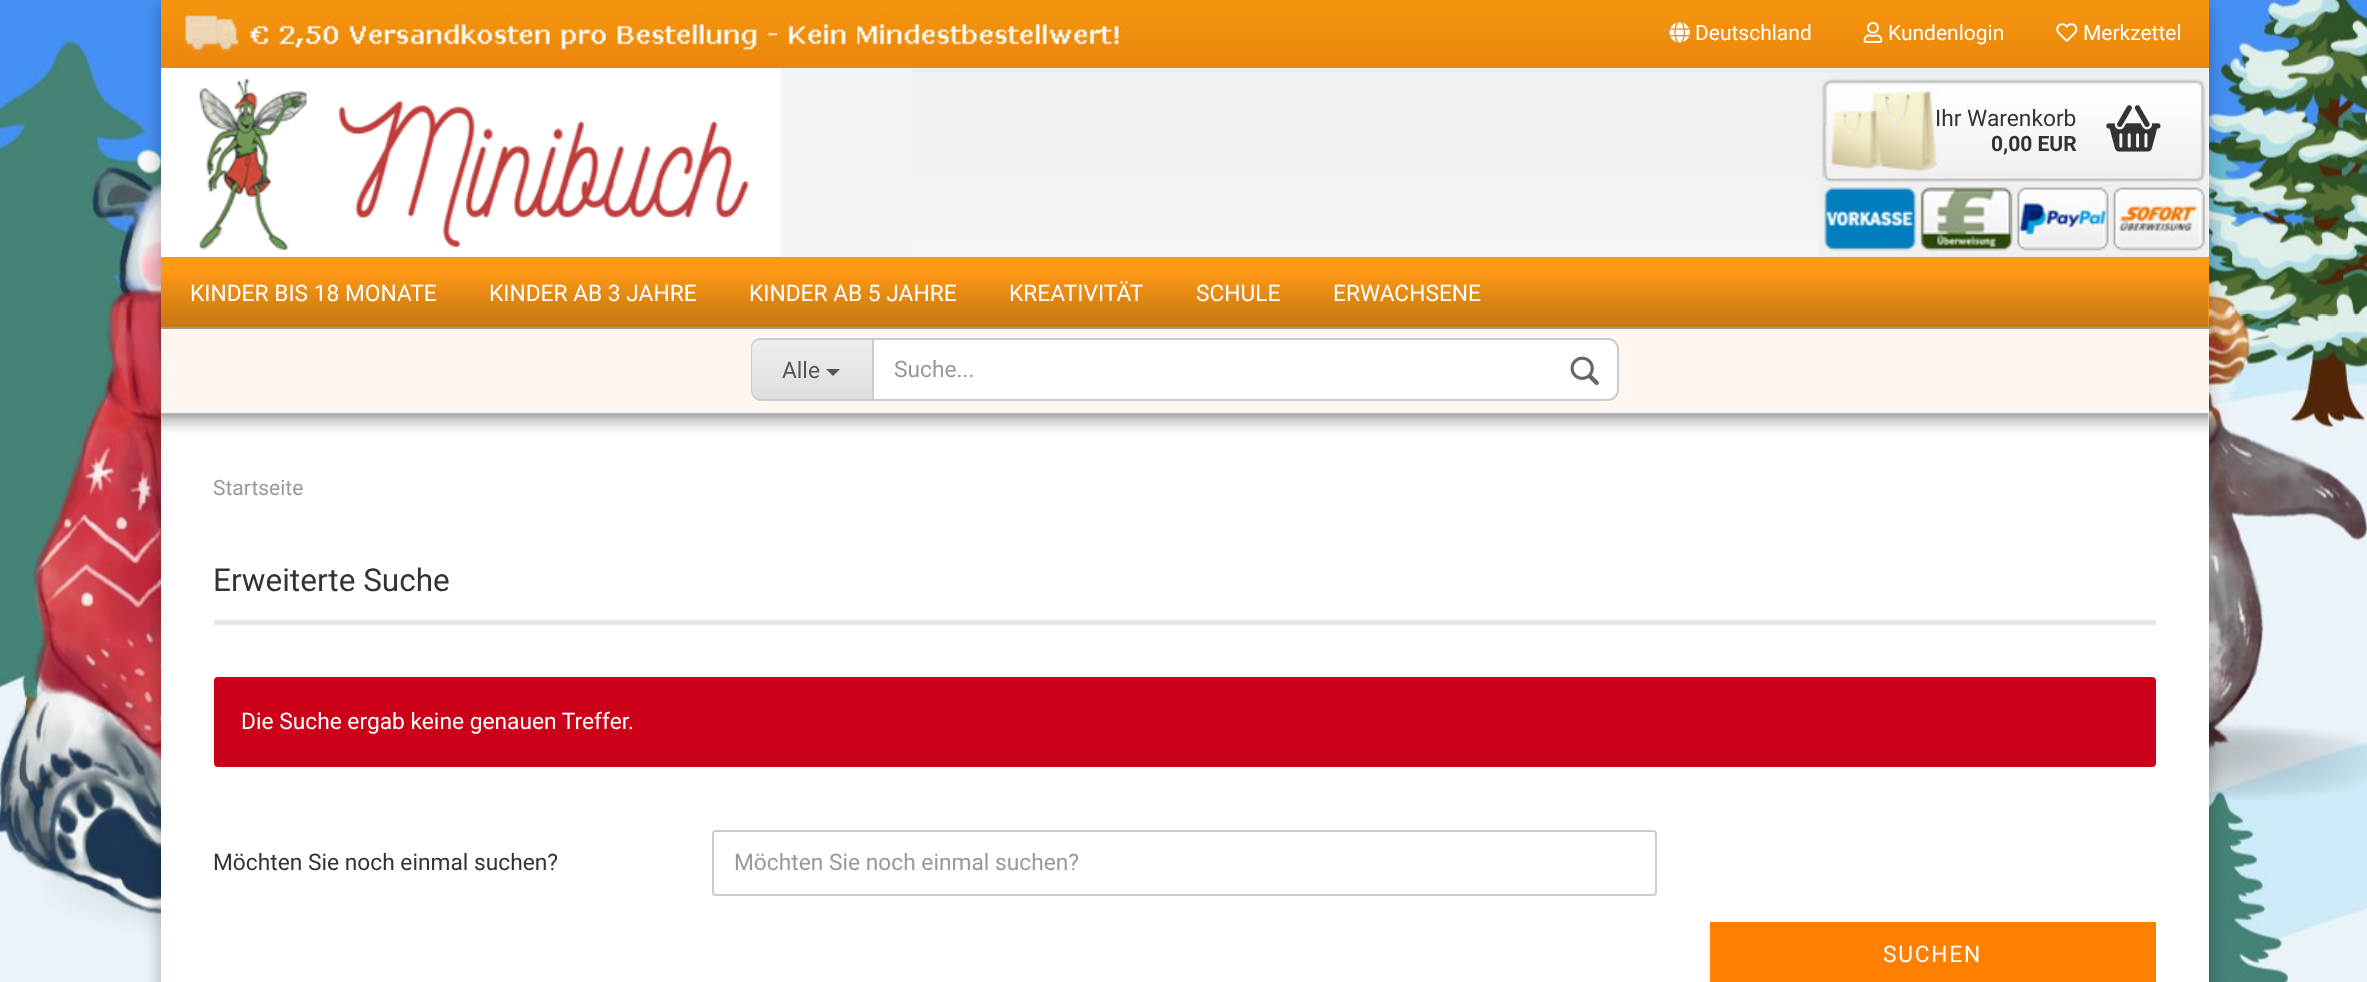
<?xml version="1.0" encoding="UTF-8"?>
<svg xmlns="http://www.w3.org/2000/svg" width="2367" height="982">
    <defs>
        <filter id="blur1" x="-50%" y="-200%" width="200%" height="500%"><feGaussianBlur stdDeviation="9"/></filter>
        <clipPath id="clip1"><path d="M 762 338 H 872 V 401 H 762 C 756 401 751 396 751 390 V 349 C 751 343 756 338 762 338 Z"/></clipPath>
        <linearGradient id="g1" gradientUnits="userSpaceOnUse" x1="812" y1="340" x2="812" y2="399"><stop offset="0" stop-color="#EEEEEE"/><stop offset="1" stop-color="#DEDEDE"/></linearGradient>
    </defs>
    <rect width="100%" height="100%" fill="#FFFFFF"/>
    <image x="0" y="0" width="2367" height="982" href="img_01.png"/>
    <rect x="161" y="0" width="2048" height="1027" rx="18" fill="#000000" fill-opacity="0.3" filter="url(#blur1)"/>
    <rect x="161" y="407" width="2048" height="575" fill="#FFFFFF"/>
    <path d="M 179 0 H 2191 C 2201 0 2209 8 2209 18 V 407 C 2209 409 2207 411 2205 411 H 165 C 163 411 161 409 161 407 V 18 C 161 8 169 0 179 0 Z" fill="#FFF7EF"/>
    <rect x="2208" y="0" width="1" height="68" fill="#F1900D"/>
    <image x="161" y="0" width="2048" height="68" href="img_02.png"/>
    <image x="1669" y="22" width="21" height="21" href="img_03.png"/>
    <text x="1695" y="40" font-family="Roboto" font-size="21" fill="#FFFFFF">Deutschland</text>
    <image x="1863" y="21" width="20" height="22" href="img_04.png"/>
    <text x="1888" y="40" font-family="Roboto" font-size="21" fill="#FFFFFF">Kundenlogin</text>
    <image x="2056" y="23" width="22" height="19" href="img_05.png"/>
    <text x="2083" y="40" font-family="Roboto" font-size="21" fill="#FFFFFF">Merkzettel</text>
    <rect x="161" y="68" width="2048" height="189" fill="#FFFFFF"/>
    <image x="161" y="68" width="2048" height="189" href="img_06.png"/>
    <image x="161" y="68" width="620" height="189" href="img_07.png"/>
    <text x="1935" y="126" font-family="Roboto" font-size="22.75" fill="#333333">Ihr Warenkorb</text>
    <text x="1991" y="151" font-family="Roboto" font-size="21" font-weight="700" fill="#333333">0,00 EUR</text>
    <image x="2106" y="105" width="55" height="47" href="img_08.png"/>
    <g clip-path="url(#clip1)">
        <rect x="751" y="340" width="121" height="59" fill="url(#g1)"/>
    </g>
    <path d="M 761 338 H 872 V 401 H 761 C 755 401 751 396 751 390 V 348 C 751 342 755 338 761 338 Z M 761 340 H 872 V 399 H 761 C 756 399 752 395 752 390 V 348 C 752 343 756 340 761 340 Z" fill="#CCCCCC" fill-rule="evenodd"/>
    <text x="782" y="378" font-family="Roboto" font-size="22.75" fill="#555555">Alle</text>
    <path d="M 826 369 H 840 L 833 376 Z" fill="#555555"/>
    <path d="M 873 339 H 1608 C 1613.5 339 1618 343.5 1618 349 V 390 C 1618 395.5 1613.5 400 1608 400 H 873 Z" fill="#FFFFFF" stroke="#CCCCCC" stroke-width="2"/>
    <text x="894" y="377" font-family="Roboto" font-size="22.75" fill="#999999">Suche...</text>
    <image x="1570" y="356" width="29" height="30" href="img_09.png"/>
    <rect x="161" y="327" width="2048" height="2" fill="#999999"/>
    <rect x="161" y="257" width="2048" height="70" fill="#FF9A16"/>
    <image x="161" y="275" width="2048" height="52" href="img_10.png"/>
    <text x="190" y="301" font-family="Roboto" font-size="22.75" fill="#FFFFFF">KINDER BIS 18 MONATE</text>
    <text x="489" y="301" font-family="Roboto" font-size="22.75" fill="#FFFFFF">KINDER AB 3 JAHRE</text>
    <text x="749" y="301" font-family="Roboto" font-size="22.75" fill="#FFFFFF">KINDER AB 5 JAHRE</text>
    <text x="1009" y="301" font-family="Roboto" font-size="22.75" fill="#FFFFFF">KREATIVITÄT</text>
    <text x="1196" y="301" font-family="Roboto" font-size="22.75" fill="#FFFFFF">SCHULE</text>
    <text x="1333" y="301" font-family="Roboto" font-size="22.75" fill="#FFFFFF">ERWACHSENE</text>
    <image x="161" y="412" width="2048" height="21" href="img_11.png"/>
    <text x="213" y="495" font-family="Roboto" font-size="21" fill="#999999">Startseite</text>
    <rect x="214" y="620" width="1942" height="5" fill="#E7E7E7"/>
    <text x="213" y="591" font-family="Roboto" font-size="31.5" fill="#333333">Erweiterte Suche</text>
    <rect x="215" y="678" width="1940" height="88" rx="3" fill="#CC0018" stroke="#CC0018" stroke-width="2"/>
    <text x="241" y="729" font-family="Roboto" font-size="22.75" fill="#FFFFFF">Die Suche ergab keine genauen Treffer.</text>
    <text x="213" y="870" font-family="Roboto" font-size="22.75" fill="#333333">Möchten Sie noch einmal suchen?</text>
    <rect x="713" y="831" width="943" height="64" rx="3" fill="none" stroke="#CCCCCC" stroke-width="2"/>
    <text x="734" y="870" font-family="Roboto" font-size="22.75" fill="#999999">Möchten Sie noch einmal suchen?</text>
    <rect x="1710" y="922" width="446" height="60" fill="#FF8000"/>
    <text x="1883" y="962" font-family="Roboto" font-size="22.75" letter-spacing="1.75" fill="#FFFFFF">SUCHEN</text>
</svg>
